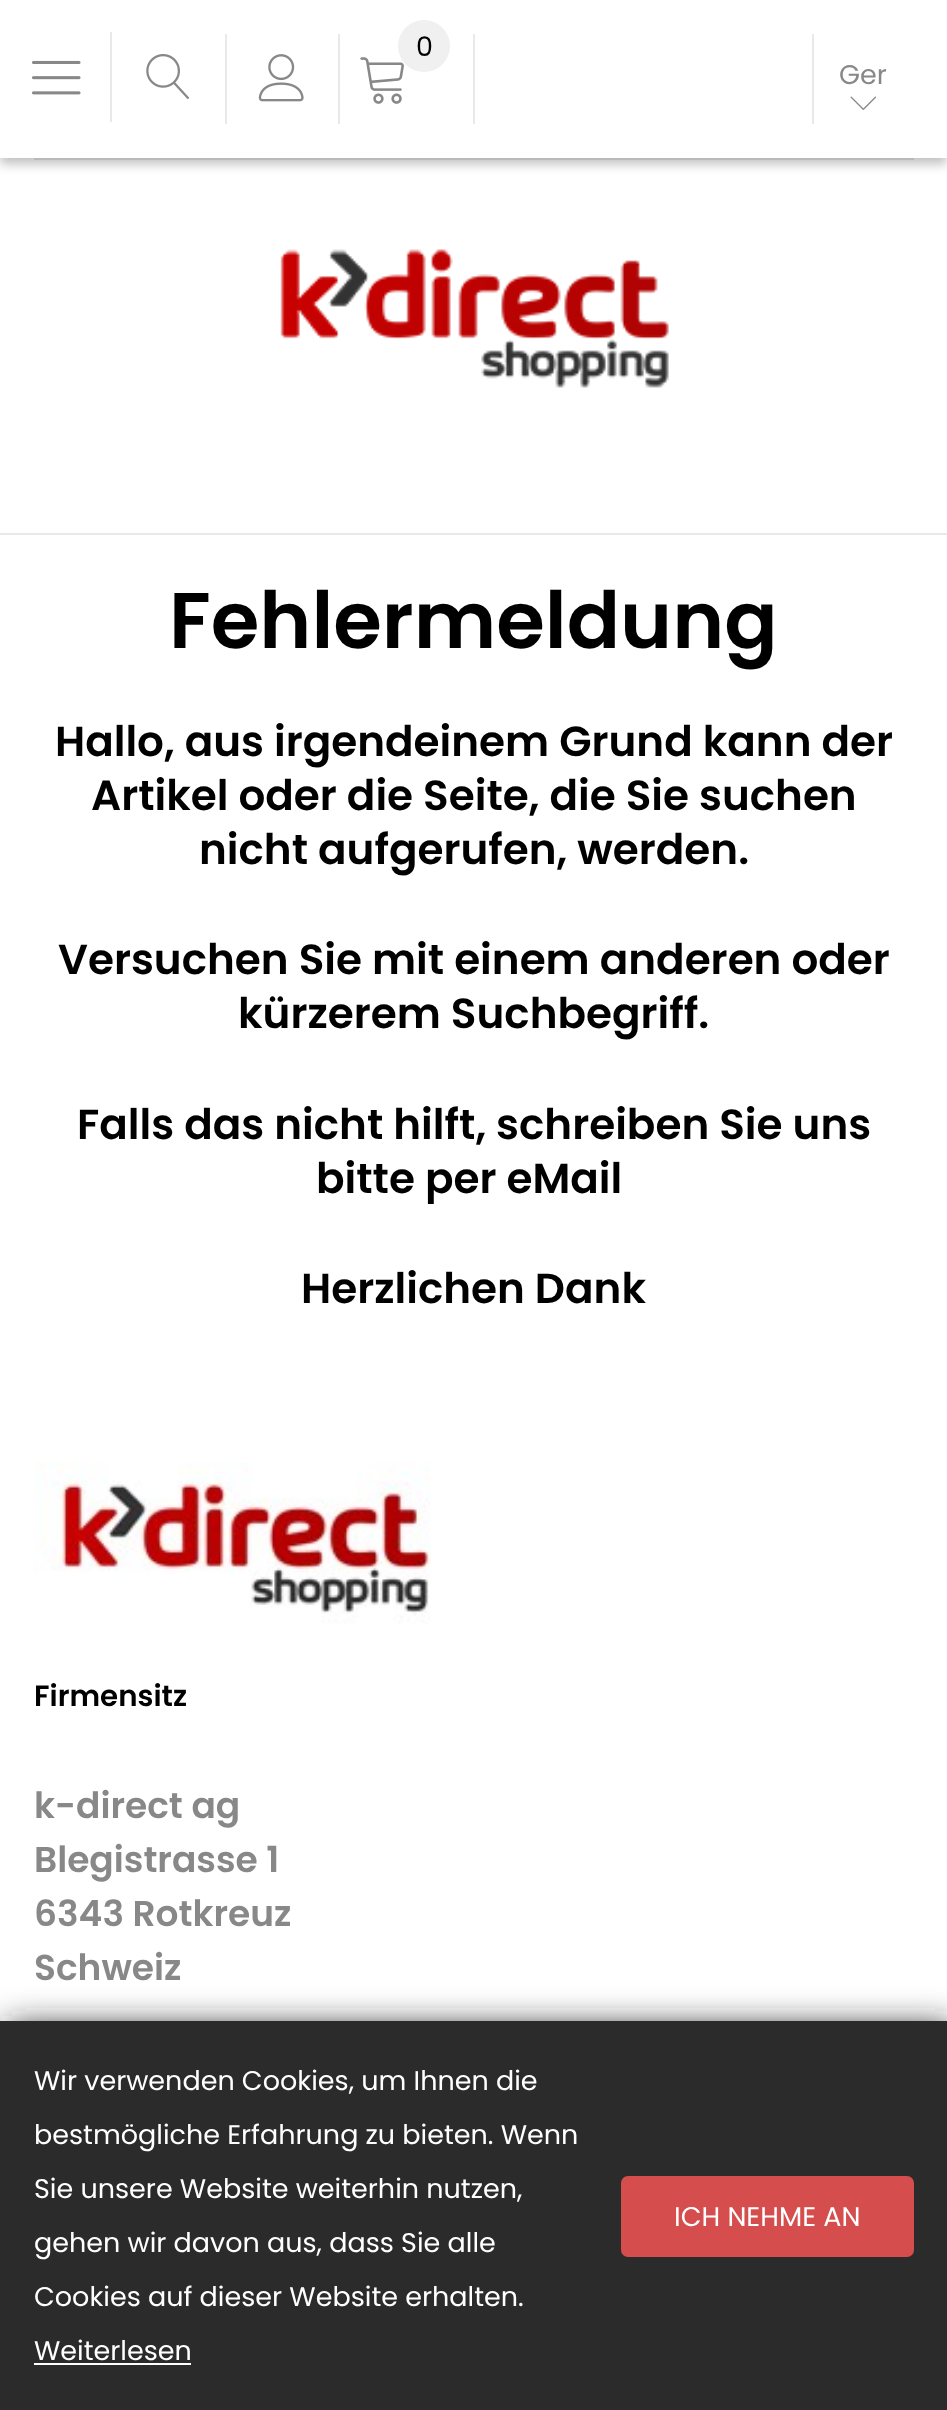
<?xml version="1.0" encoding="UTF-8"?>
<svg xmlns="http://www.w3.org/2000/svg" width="947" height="2410">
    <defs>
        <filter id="blur1" x="-50%" y="-200%" width="200%" height="500%"><feGaussianBlur stdDeviation="5.5"/></filter>
        <filter id="blur2" x="-50%" y="-200%" width="200%" height="500%"><feGaussianBlur stdDeviation="17"/></filter>
    </defs>
    <rect width="100%" height="100%" fill="#FFFFFF"/>
    <rect x="0" y="533" width="947" height="2" fill="#EAE9E9"/>
    <rect x="34" y="158" width="880" height="2" fill="#EAE9E9"/>
    <rect x="0" y="7" width="947" height="157" fill="#000000" fill-opacity="0.25" filter="url(#blur1)"/>
    <rect x="0" y="0" width="947" height="158" fill="#FFFFFF"/>
    <rect x="110" y="32" width="2" height="90" fill="#EAE9E9"/>
    <image x="32" y="60" width="49" height="35" href="img_01.png"/>
    <image x="146" y="54" width="43" height="45" href="img_02.png"/>
    <rect x="225" y="34" width="2" height="90" fill="#EAE9E9"/>
    <image x="258" y="54" width="46" height="48" href="img_03.png"/>
    <rect x="473" y="34" width="2" height="90" fill="#EAE9E9"/>
    <rect x="338" y="34" width="2" height="90" fill="#EAE9E9"/>
    <image x="360" y="57" width="44" height="47" href="img_04.png"/>
    <circle cx="424" cy="46" r="26" fill="#F0F0F0"/>
    <text x="416" y="56" font-family="Poppins" font-size="27" fill="#000000">0</text>
    <image x="280" y="249" width="389" height="139" href="img_05.png"/>
    <rect x="812" y="34" width="2" height="90" fill="#EAE9E9"/>
    <text x="839" y="84" font-family="Poppins" font-size="27" fill="#888888">Ger</text>
    <image x="850" y="96" width="27" height="14" href="img_06.png"/>
    <text x="169" y="648" font-family="Poppins" font-size="78.75" font-weight="600" fill="#000000">Fehlermeldung</text>
    <text x="55" y="756" font-family="Poppins" font-size="42.1" font-weight="600" fill="#000000">Hallo, aus irgendeinem Grund kann der</text>
    <text x="91" y="810" font-family="Poppins" font-size="42.1" font-weight="600" fill="#000000">Artikel oder die Seite, die Sie suchen</text>
    <text x="199" y="864" font-family="Poppins" font-size="42.1" font-weight="600" fill="#000000">nicht aufgerufen, werden.</text>
    <text x="58" y="974" font-family="Poppins" font-size="42.1" font-weight="600" fill="#000000">Versuchen Sie mit einem anderen oder</text>
    <text x="238" y="1028" font-family="Poppins" font-size="42.1" font-weight="600" fill="#000000">kürzerem Suchbegriff.</text>
    <text x="77" y="1139" font-family="Poppins" font-size="42.1" font-weight="600" fill="#000000">Falls das nicht hilft, schreiben Sie uns</text>
    <text x="316" y="1193" font-family="Poppins" font-size="42.1" font-weight="600" fill="#000000">bitte per eMail</text>
    <text x="301" y="1303" font-family="Poppins" font-size="42.1" font-weight="600" fill="#000000">Herzlichen Dank</text>
    <image x="34" y="1462" width="397" height="162" href="img_07.png"/>
    <text x="34" y="1706" font-family="Poppins" font-size="29.25" font-weight="600" fill="#000000">Firmensitz</text>
    <text font-family="Poppins" font-size="36" font-weight="600" fill="#888888">
        <tspan x="34" y="1818">k-direct ag</tspan>
        <tspan x="34" y="1872">Blegistrasse 1</tspan>
        <tspan x="34" y="1926">6343 Rotkreuz</tspan>
        <tspan x="34" y="1980">Schweiz</tspan>
    </text>
    <rect x="7" y="2027" width="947" height="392" fill="#222222" filter="url(#blur2)"/>
    <rect x="0" y="2021" width="947" height="389" fill="#2B2B2B"/>
    <text x="34" y="2090" font-family="Poppins" font-size="27" fill="#FFFFFF">Wir verwenden Cookies, um Ihnen die</text>
    <text x="34" y="2144" font-family="Poppins" font-size="27" fill="#FFFFFF">bestmögliche Erfahrung zu bieten. Wenn</text>
    <text x="34" y="2198" font-family="Poppins" font-size="27" fill="#FFFFFF">Sie unsere Website weiterhin nutzen,</text>
    <text x="34" y="2252" font-family="Poppins" font-size="27" fill="#FFFFFF">gehen wir davon aus, dass Sie alle</text>
    <text x="34" y="2306" font-family="Poppins" font-size="27" fill="#FFFFFF">Cookies auf dieser Website erhalten.</text>
    <text x="34" y="2360" font-family="Poppins" font-size="27" fill="#FFFFFF">Weiterlesen</text>
    <rect x="34" y="2363" width="157" height="2" fill="#FFFFFF"/>
    <rect x="621" y="2176" width="293" height="81" rx="7" fill="#D54D4D"/>
    <text x="674" y="2226" font-family="Poppins" font-size="27" fill="#FFFFFF">ICH NEHME AN</text>
</svg>
